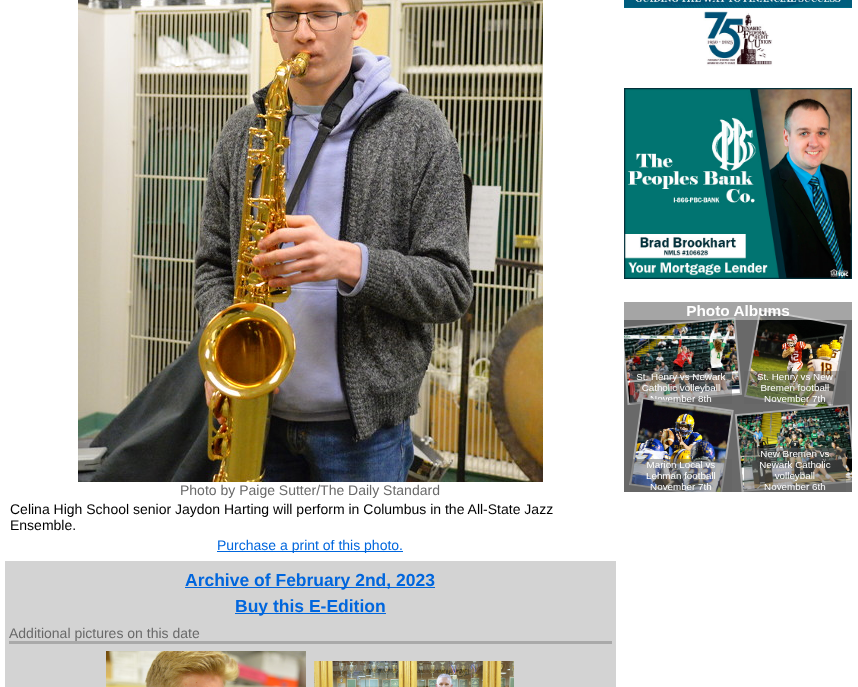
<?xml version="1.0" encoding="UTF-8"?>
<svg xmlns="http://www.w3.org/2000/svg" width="858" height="687">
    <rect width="100%" height="100%" fill="#FFFFFF"/>
    <image x="624" y="0" width="228" height="66" href="img_01.png"/>
    <image x="624" y="88" width="228" height="191" href="img_02.png"/>
    <image x="624" y="302" width="228" height="190" href="img_03.png"/>
    <image x="78" y="0" width="465" height="482" href="img_04.png"/>
    <text x="180" y="495" font-family="Liberation Sans" font-size="14" fill="#696969">Photo by Paige Sutter/The Daily Standard</text>
    <text font-family="Liberation Sans" font-size="14" fill="#000000">
        <tspan x="10" y="514">Celina High School senior Jaydon Harting will perform in Columbus in the All-State Jazz</tspan>
        <tspan x="10" y="530">Ensemble.</tspan>
    </text>
    <rect x="217" y="551" width="186" height="1" fill="#0066DD"/>
    <text x="217" y="550" font-family="Liberation Sans" font-size="14" fill="#0066DD">Purchase a print of this photo.</text>
    <rect x="5" y="561" width="611" height="126" fill="#D3D3D3"/>
    <rect x="185" y="587" width="250" height="1" fill="#0066DD"/>
    <text x="185" y="586" font-family="Liberation Sans" font-size="17.5" font-weight="700" fill="#0066DD">Archive of February 2nd, 2023</text>
    <rect x="235" y="613" width="151" height="1" fill="#0066DD"/>
    <text x="235" y="612" font-family="Liberation Sans" font-size="17.5" font-weight="700" fill="#0066DD">Buy this E-Edition</text>
    <rect x="9" y="641" width="603" height="3" fill="#A9A9A9"/>
    <text x="9" y="638" font-family="Liberation Sans" font-size="14" fill="#696969">Additional pictures on this date</text>
    <image x="106" y="651" width="200" height="36" href="img_05.png"/>
    <image x="314" y="661" width="200" height="26" href="img_06.png"/>
</svg>
